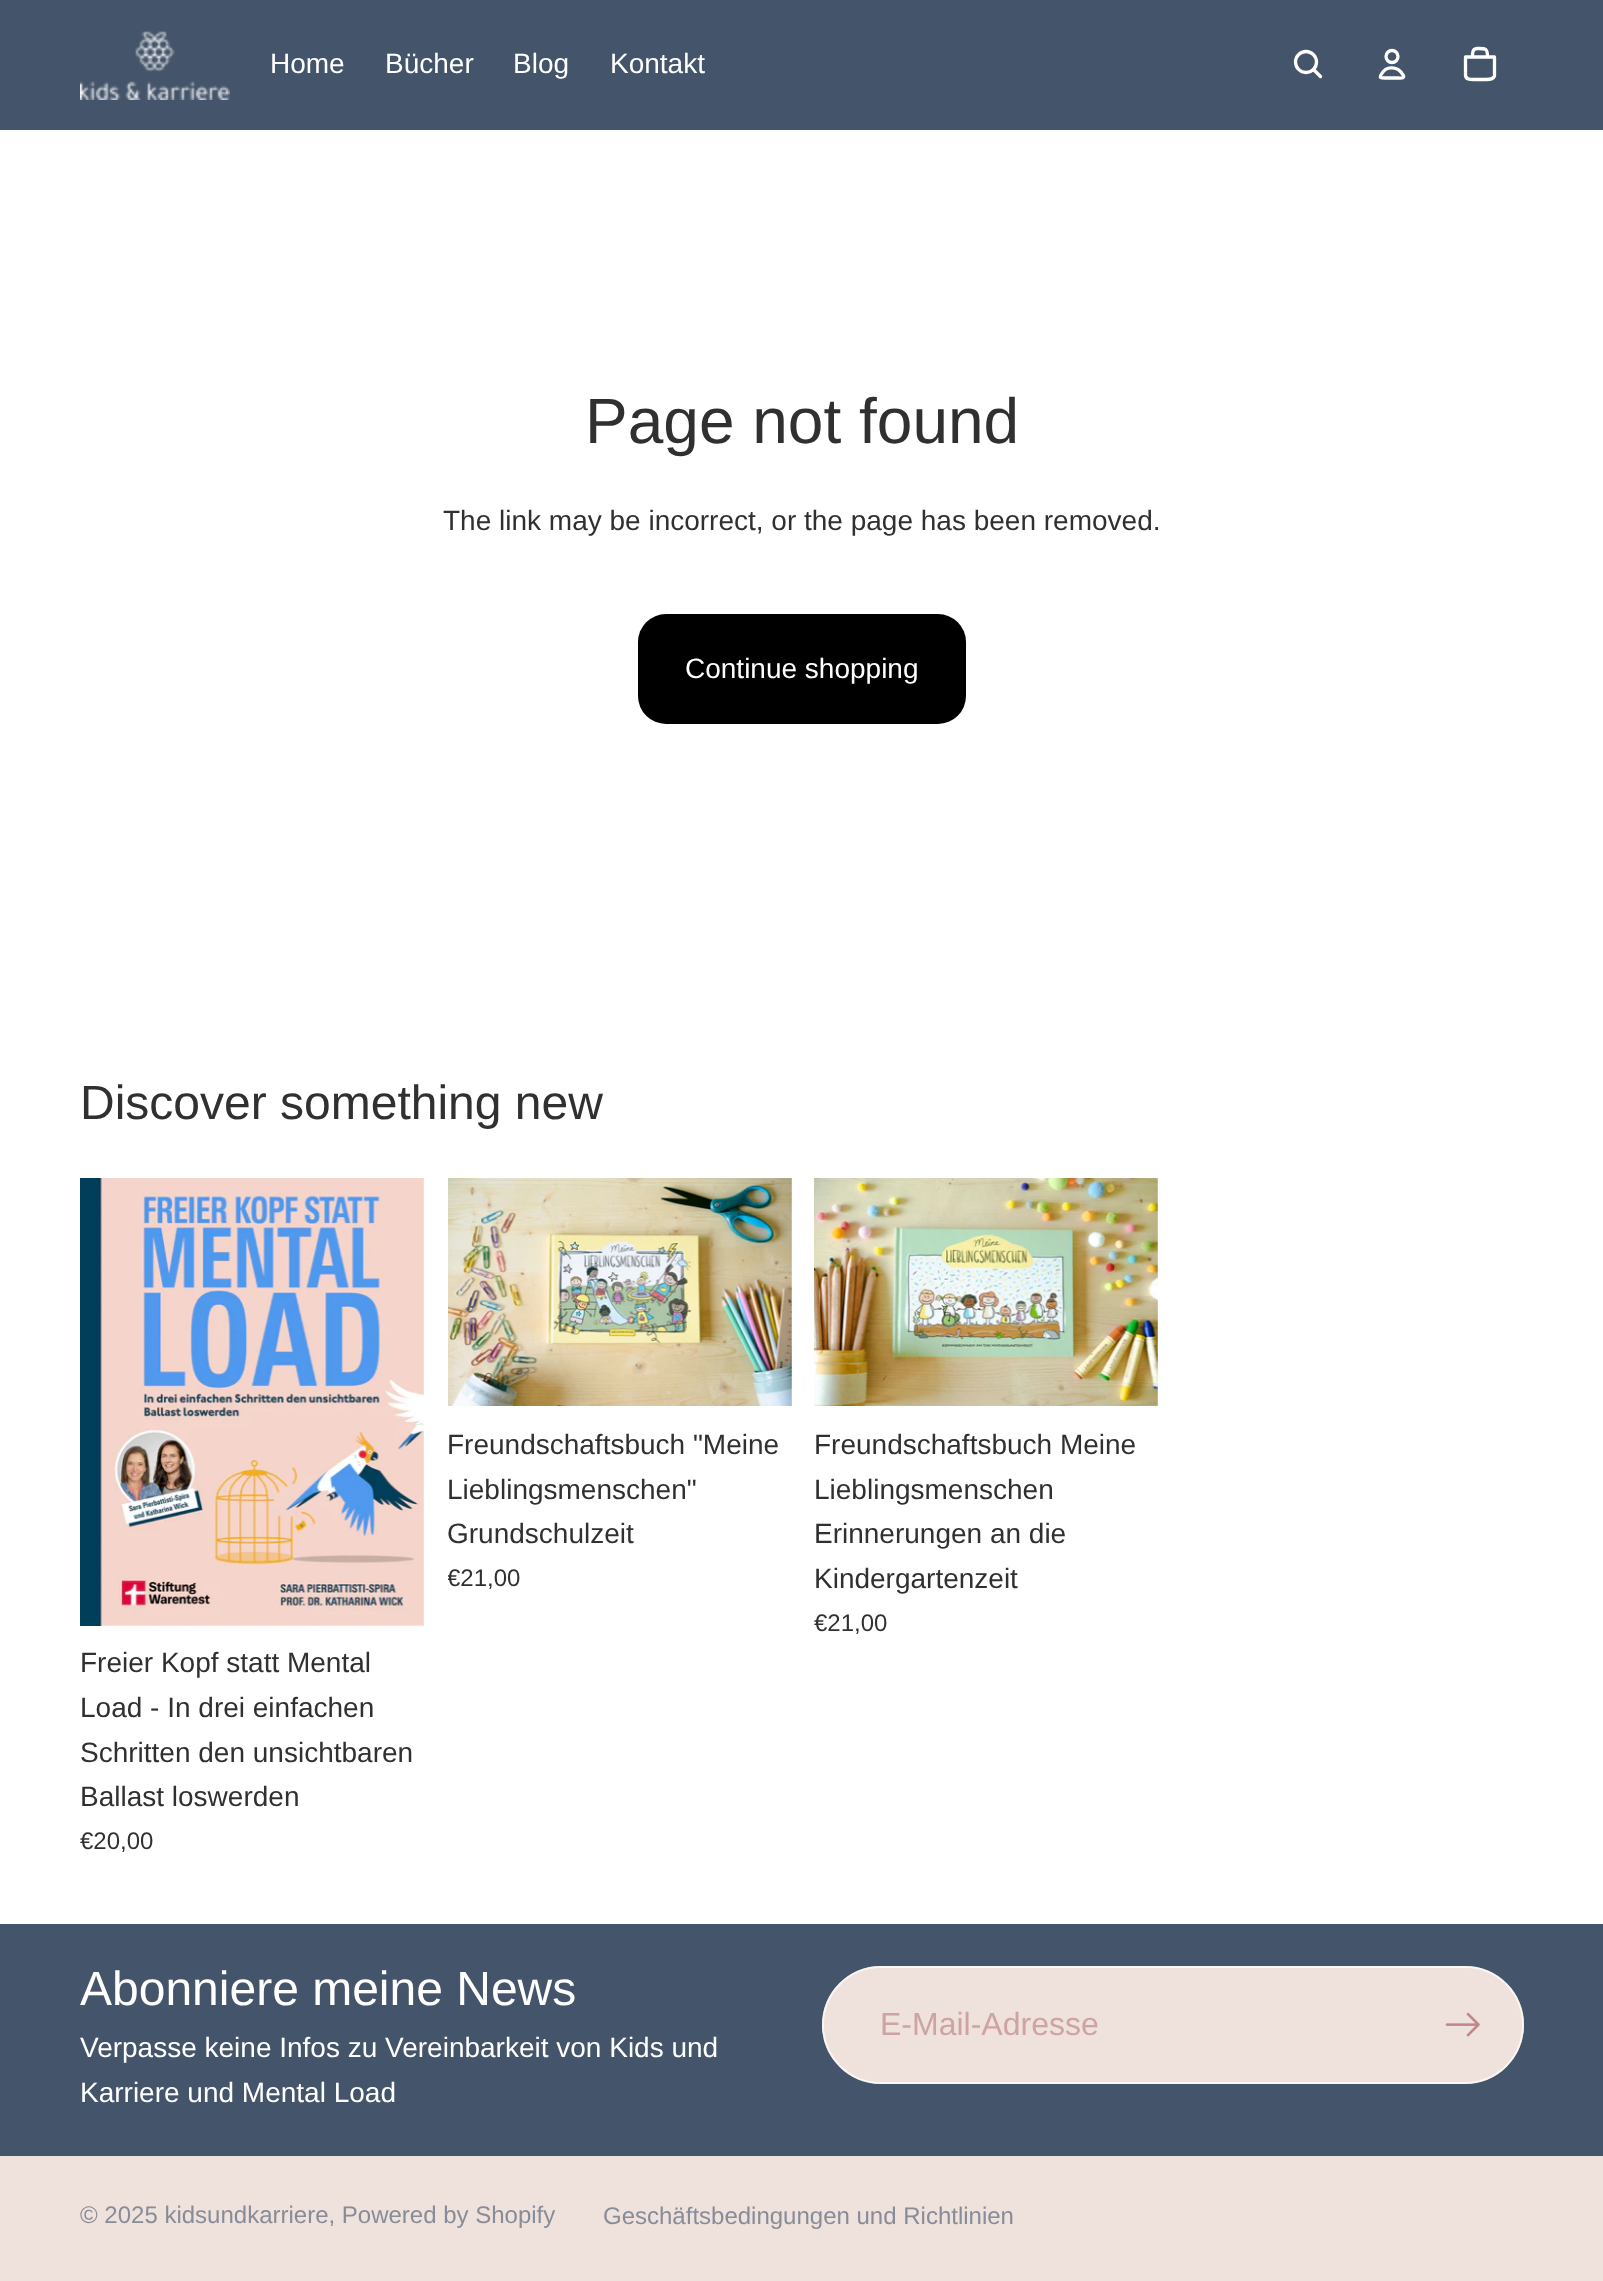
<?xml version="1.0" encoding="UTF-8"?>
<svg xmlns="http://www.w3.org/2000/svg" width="1603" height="2281">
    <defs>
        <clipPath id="clip1"><rect x="448" y="1178" width="342" height="678"/></clipPath>
    </defs>
    <rect width="100%" height="100%" fill="#FFFFFF"/>
    <rect x="0" y="0" width="1603" height="130" fill="#44546A"/>
    <image x="80" y="31" width="150" height="69" href="img_01.png"/>
    <text x="270" y="73" font-family="Liberation Sans" font-size="28" fill="#FFFFFF">Home</text>
    <text x="385" y="73" font-family="Liberation Sans" font-size="28" fill="#FFFFFF">Bücher</text>
    <text x="513" y="73" font-family="Liberation Sans" font-size="28" fill="#FFFFFF">Blog</text>
    <text x="610" y="73" font-family="Liberation Sans" font-size="28" fill="#FFFFFF">Kontakt</text>
    <circle cx="1306" cy="62" r="10.5" fill="none" stroke="#FFFFFF" stroke-width="3.3"/>
    <path d="M 1313.5 69.5 L 1320.5 76.5" fill="none" stroke="#FFFFFF" stroke-width="3.3" stroke-linecap="round" stroke-linejoin="round"/>
    <circle cx="1392" cy="56.5" r="6" fill="none" stroke="#FFFFFF" stroke-width="3.3"/>
    <path d="M 1381.5 74 C 1379 78 1380.5 78 1385 78 H 1399 C 1399.5 78 1403 78.5 1403.5 77 C 1404 76.5 1403.5 75.5 1403 75 C 1398.5 66.5 1386.5 65 1381.5 74" fill="none" stroke="#FFFFFF" stroke-width="3.3" stroke-linecap="round" stroke-linejoin="round"/>
    <path d="M 1465.5 57 H 1494.5 V 76 C 1493 79.5 1489.5 79.5 1486.5 79.5 H 1473.5 C 1470 79.5 1465.5 79.5 1465.5 75 Z M 1477.5 48.5 C 1485.5 48.5 1487.5 48 1487.5 57 H 1472.5 C 1472.5 53.5 1472 48.5 1477.5 48.5" fill="none" stroke="#FFFFFF" stroke-width="3.3" stroke-linecap="round" stroke-linejoin="round"/>
    <text x="585" y="443" font-family="Liberation Sans" font-size="64" fill="#303030">Page not found</text>
    <text x="443" y="530" font-family="Liberation Sans" font-size="28" fill="#303030">The link may be incorrect, or the page has been removed.</text>
    <rect x="638" y="614" width="328" height="110" rx="28" fill="#000000"/>
    <text x="685" y="678" font-family="Liberation Sans" font-size="28" fill="#FFFFFF">Continue shopping</text>
    <text x="80" y="1119" font-family="Liberation Sans" font-size="48" fill="#303030">Discover something new</text>
    <image x="448" y="1178" width="344" height="228" href="img_02.png"/>
    <text font-family="Liberation Sans" font-size="28" fill="#303030">
        <tspan x="447" y="1454">Freundschaftsbuch "Meine</tspan>
        <tspan x="447" y="1499">Lieblingsmenschen"</tspan>
        <tspan x="447" y="1543">Grundschulzeit</tspan>
    </text>
    <g clip-path="url(#clip1)">
        <text x="447" y="1586" font-family="Liberation Sans" font-size="24" fill="#303030">€21,00</text>
    </g>
    <image x="814" y="1178" width="344" height="228" href="img_03.png"/>
    <text font-family="Liberation Sans" font-size="28" fill="#303030">
        <tspan x="814" y="1454">Freundschaftsbuch Meine</tspan>
        <tspan x="814" y="1499">Lieblingsmenschen</tspan>
        <tspan x="814" y="1543">Erinnerungen an die</tspan>
        <tspan x="814" y="1588">Kindergartenzeit</tspan>
    </text>
    <text x="814" y="1631" font-family="Liberation Sans" font-size="24" fill="#303030">€21,00</text>
    <image x="80" y="1178" width="344" height="448" href="img_04.png"/>
    <text font-family="Liberation Sans" font-size="28" fill="#303030">
        <tspan x="80" y="1672">Freier Kopf statt Mental</tspan>
        <tspan x="80" y="1717">Load - In drei einfachen</tspan>
        <tspan x="80" y="1762">Schritten den unsichtbaren</tspan>
        <tspan x="80" y="1806">Ballast loswerden</tspan>
    </text>
    <text x="80" y="1849" font-family="Liberation Sans" font-size="24" fill="#303030">€20,00</text>
    <rect x="0" y="1924" width="1603" height="232" fill="#44546A"/>
    <text x="80" y="2005" font-family="Liberation Sans" font-size="48" fill="#FFFFFF">Abonniere meine News</text>
    <text font-family="Liberation Sans" font-size="28" fill="#FFFFFF">
        <tspan x="80" y="2057">Verpasse keine Infos zu Vereinbarkeit von Kids und</tspan>
        <tspan x="80" y="2102">Karriere und Mental Load</tspan>
    </text>
    <rect x="822" y="1966" width="702" height="118" rx="59" fill="#EFE1DC"/>
    <rect x="823" y="1967" width="700" height="116" rx="58" fill="none" stroke="#FFFFFF" stroke-opacity="0.69" stroke-width="2"/>
    <text x="880" y="2035" font-family="Liberation Sans" font-size="32" fill="#CEA3A3">E-Mail-Adresse</text>
    <image x="1445" y="2012" width="35" height="25" href="img_05.png"/>
    <rect x="0" y="2156" width="1603" height="125" fill="#EFE1DC"/>
    <text x="80" y="2223" font-family="Liberation Sans" font-size="24" fill="#888C98">© 2025 kidsundkarriere, Powered by Shopify</text>
    <text x="603" y="2224" font-family="Liberation Sans" font-size="24" fill="#888C98">Geschäftsbedingungen und Richtlinien</text>
</svg>
